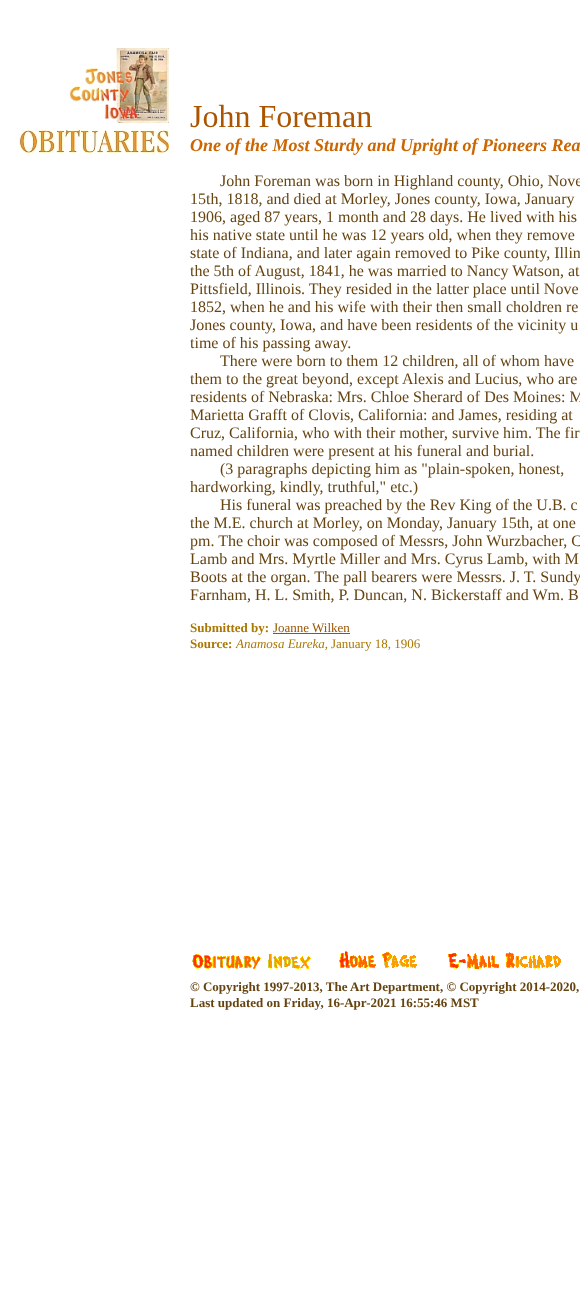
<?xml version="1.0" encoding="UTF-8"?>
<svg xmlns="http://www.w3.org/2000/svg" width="580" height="1301">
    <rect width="100%" height="100%" fill="#FFFFFF"/>
    <image x="69" y="48" width="100" height="75" href="img_01.png"/>
    <image x="19" y="128" width="150" height="25" href="img_02.png"/>
    <text x="190" y="127" font-family="Liberation Serif" font-size="32" fill="#AA5500">John Foreman</text>
    <text x="190" y="151" font-family="Liberation Serif" font-size="18" font-weight="700" font-style="italic" fill="#CC6600">One of the Most Sturdy and Upright of Pioneers Rea</text>
    <text x="220" y="186" font-family="Liberation Serif" font-size="16" fill="#664411">John Foreman was born in Highland county, Ohio, Nove</text>
    <text font-family="Liberation Serif" font-size="16" fill="#664411">
        <tspan x="190" y="204">15th, 1818, and died at Morley, Jones county, Iowa, January</tspan>
        <tspan x="190" y="222">1906, aged 87 years, 1 month and 28 days. He lived with his</tspan>
        <tspan x="190" y="240">his native state until he was 12 years old, when they remove</tspan>
        <tspan x="190" y="258">state of Indiana, and later again removed to Pike county, Illin</tspan>
        <tspan x="190" y="276">the 5th of August, 1841, he was married to Nancy Watson, at</tspan>
        <tspan x="190" y="294">Pittsfield, Illinois. They resided in the latter place until Nove</tspan>
        <tspan x="190" y="312">1852, when he and his wife with their then small choldren re</tspan>
        <tspan x="190" y="330">Jones county, Iowa, and have been residents of the vicinity u</tspan>
        <tspan x="190" y="348">time of his passing away.</tspan>
    </text>
    <text x="220" y="366" font-family="Liberation Serif" font-size="16" fill="#664411">There were born to them 12 children, all of whom have</text>
    <text font-family="Liberation Serif" font-size="16" fill="#664411">
        <tspan x="190" y="384">them to the great beyond, except Alexis and Lucius, who are</tspan>
        <tspan x="190" y="402">residents of Nebraska: Mrs. Chloe Sherard of Des Moines: M</tspan>
        <tspan x="190" y="420">Marietta Grafft of Clovis, California: and James, residing at</tspan>
        <tspan x="190" y="438">Cruz, California, who with their mother, survive him. The fir</tspan>
        <tspan x="190" y="456">named children were present at his funeral and burial.</tspan>
    </text>
    <text x="220" y="474" font-family="Liberation Serif" font-size="16" fill="#664411">(3 paragraphs depicting him as "plain-spoken, honest,</text>
    <text x="190" y="492" font-family="Liberation Serif" font-size="16" fill="#664411">hardworking, kindly, truthful," etc.)</text>
    <text x="220" y="510" font-family="Liberation Serif" font-size="16" fill="#664411">His funeral was preached by the Rev King of the U.B. c</text>
    <text font-family="Liberation Serif" font-size="16" fill="#664411">
        <tspan x="190" y="528">the M.E. church at Morley, on Monday, January 15th, at one</tspan>
        <tspan x="190" y="546">pm. The choir was composed of Messrs, John Wurzbacher, C</tspan>
        <tspan x="190" y="564">Lamb and Mrs. Myrtle Miller and Mrs. Cyrus Lamb, with M</tspan>
        <tspan x="190" y="582">Boots at the organ. The pall bearers were Messrs. J. T. Sundy</tspan>
        <tspan x="190" y="600">Farnham, H. L. Smith, P. Duncan, N. Bickerstaff and Wm. B</tspan>
    </text>
    <text x="190" y="632" font-family="Liberation Serif" font-size="13" font-weight="700" fill="#AA7700">Submitted by:</text>
    <text x="273" y="632" font-family="Liberation Serif" font-size="13" fill="#995500">Joanne Wilken</text>
    <rect x="273" y="633" width="77" height="1" fill="#995500"/>
    <text x="190" y="648" font-family="Liberation Serif" font-size="13" font-weight="700" fill="#AA7700">Source:</text>
    <text x="236" y="648" font-family="Liberation Serif" font-size="13" font-style="italic" fill="#AA7700">Anamosa Eureka,</text>
    <text x="331" y="648" font-family="Liberation Serif" font-size="13" fill="#AA7700">January 18, 1906</text>
    <image x="192" y="954" width="119" height="15" href="img_03.png"/>
    <image x="339" y="951" width="78" height="18" href="img_04.png"/>
    <image x="448" y="952" width="113" height="17" href="img_05.png"/>
    <text font-family="Liberation Serif" font-size="13" font-weight="700" fill="#664411">
        <tspan x="190" y="991">© Copyright 1997-2013, The Art Department, © Copyright 2014-2020,</tspan>
        <tspan x="190" y="1007">Last updated on Friday, 16-Apr-2021 16:55:46 MST</tspan>
    </text>
</svg>
